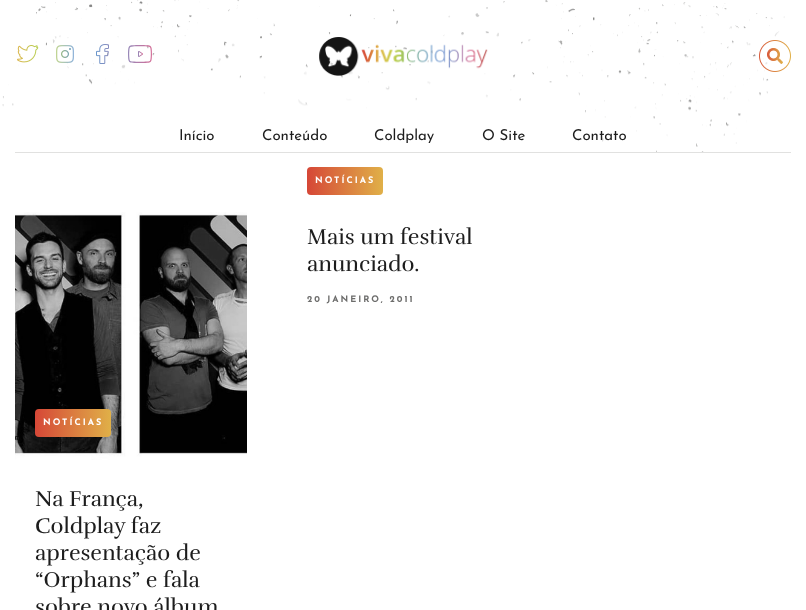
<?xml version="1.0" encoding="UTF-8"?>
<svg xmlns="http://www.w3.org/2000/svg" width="806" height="610">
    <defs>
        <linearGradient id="g1" gradientUnits="userSpaceOnUse" x1="307" y1="181" x2="383" y2="181"><stop offset="0" stop-color="#D64737"/><stop offset="1" stop-color="#E0B048"/></linearGradient>
        <linearGradient id="g2" gradientUnits="userSpaceOnUse" x1="35" y1="423" x2="111" y2="423"><stop offset="0" stop-color="#D64737"/><stop offset="1" stop-color="#E0B048"/></linearGradient>
    </defs>
    <rect width="100%" height="100%" fill="#FFFFFF"/>
    <image x="2" y="0" width="783" height="152" href="img_01.png"/>
    <image x="17" y="45" width="22" height="18" href="img_02.png"/>
    <image x="56" y="45" width="18" height="18" href="img_03.png"/>
    <image x="96" y="44" width="13" height="20" href="img_04.png"/>
    <image x="128" y="45" width="24" height="18" href="img_05.png"/>
    <image x="319" y="37" width="169" height="39" href="img_06.png"/>
    <image x="759" y="40" width="32" height="32" href="img_07.png"/>
    <rect x="15" y="152" width="776" height="1" fill="#E1E1E0"/>
    <text x="179" y="140" font-family="Josefin Sans" font-size="15" fill="#1D1D1D">Início</text>
    <text x="262" y="140" font-family="Josefin Sans" font-size="15" fill="#1D1D1D">Conteúdo</text>
    <text x="374" y="140" font-family="Josefin Sans" font-size="15" fill="#1D1D1D">Coldplay</text>
    <text x="482" y="140" font-family="Josefin Sans" font-size="15" fill="#1D1D1D">O Site</text>
    <text x="572" y="140" font-family="Josefin Sans" font-size="15" fill="#1D1D1D">Contato</text>
    <rect x="307" y="167" width="76" height="28" rx="4" fill="url(#g1)"/>
    <text x="315" y="183" font-family="Josefin Sans" font-size="9" font-weight="700" letter-spacing="2" fill="#FFFFFF">NOTÍCIAS</text>
    <text font-family="Rufina" font-size="22" fill="#1D1D1D">
        <tspan x="307" y="244">Mais um festival</tspan>
        <tspan x="307" y="271">anunciado.</tspan>
    </text>
    <text x="307" y="302" font-family="Josefin Sans" font-size="9" font-weight="700" letter-spacing="2" fill="#6C6C6B">20 JANEIRO, 2011</text>
    <image x="15" y="212" width="232" height="248" href="img_08.png"/>
    <rect x="35" y="409" width="76" height="28" rx="4" fill="url(#g2)"/>
    <text x="43" y="425" font-family="Josefin Sans" font-size="9" font-weight="700" letter-spacing="2" fill="#FFFFFF">NOTÍCIAS</text>
    <text font-family="Rufina" font-size="22" fill="#1D1D1D">
        <tspan x="35" y="506">Na França,</tspan>
        <tspan x="35" y="533">Coldplay faz</tspan>
        <tspan x="35" y="560">apresentação de</tspan>
        <tspan x="35" y="587">“Orphans” e fala</tspan>
        <tspan x="35" y="614">sobre novo álbum</tspan>
    </text>
</svg>
